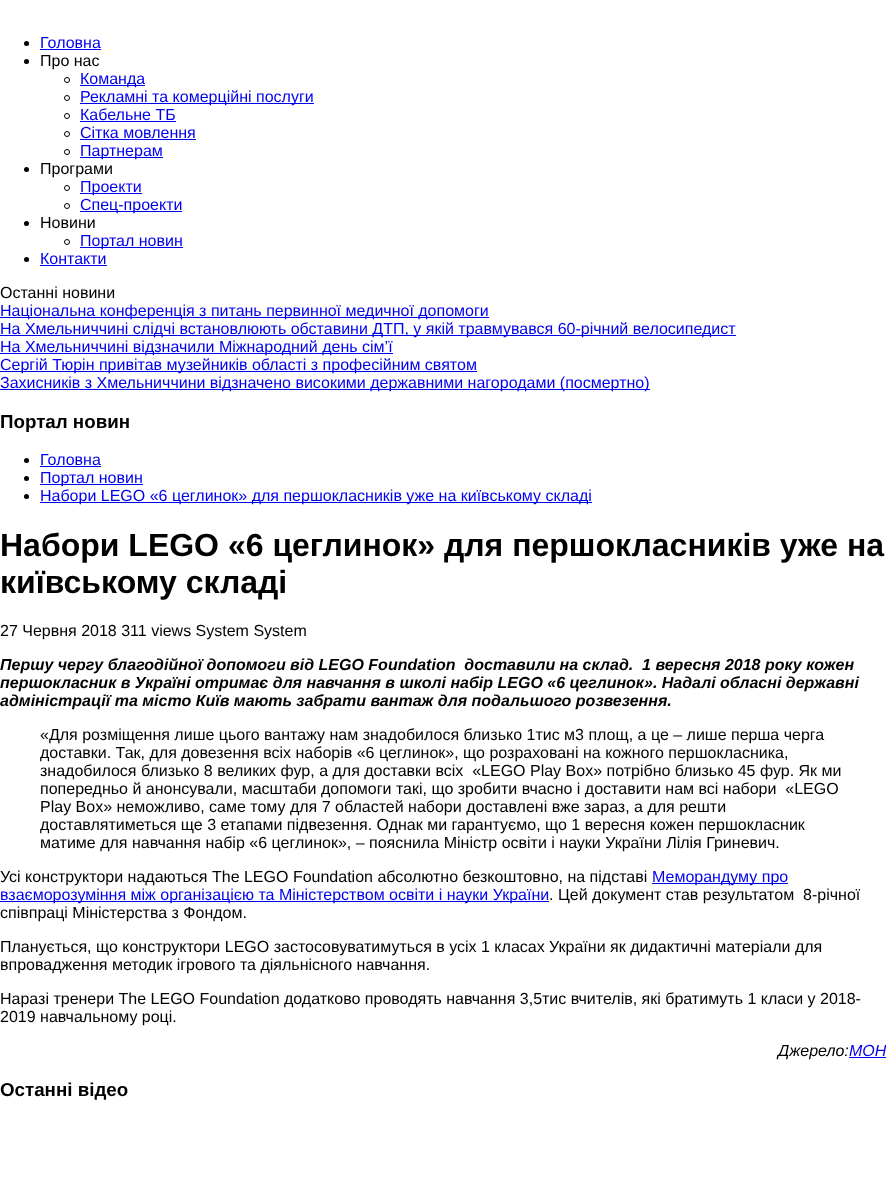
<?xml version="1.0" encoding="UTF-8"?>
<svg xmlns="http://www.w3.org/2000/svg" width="886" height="1196">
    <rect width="100%" height="100%" fill="#FFFFFF"/>
    <circle cx="26.5" cy="43.5" r="2.5" fill="#000000"/>
    <text x="40" y="48" font-family="Liberation Sans" font-size="16" fill="#0000EE">Головна</text>
    <rect x="40" y="49" width="61" height="1" fill="#0000EE"/>
    <circle cx="26.5" cy="61.5" r="2.5" fill="#000000"/>
    <text x="40" y="66" font-family="Liberation Sans" font-size="16" fill="#000000">Про нас</text>
    <circle cx="67" cy="80" r="2.5" fill="none" stroke="#000000"/>
    <rect x="80" y="85" width="65" height="1" fill="#0000EE"/>
    <text x="80" y="84" font-family="Liberation Sans" font-size="16" fill="#0000EE">Команда</text>
    <circle cx="67" cy="98" r="2.5" fill="none" stroke="#000000"/>
    <rect x="80" y="103" width="234" height="1" fill="#0000EE"/>
    <text x="80" y="102" font-family="Liberation Sans" font-size="16" fill="#0000EE">Рекламні та комерційні послуги</text>
    <circle cx="67" cy="116" r="2.5" fill="none" stroke="#000000"/>
    <text x="80" y="120" font-family="Liberation Sans" font-size="16" fill="#0000EE">Кабельне ТБ</text>
    <rect x="80" y="121" width="96" height="1" fill="#0000EE"/>
    <circle cx="67" cy="134" r="2.5" fill="none" stroke="#000000"/>
    <text x="80" y="138" font-family="Liberation Sans" font-size="16" fill="#0000EE">Сітка мовлення</text>
    <rect x="80" y="139" width="116" height="1" fill="#0000EE"/>
    <circle cx="67" cy="152" r="2.5" fill="none" stroke="#000000"/>
    <rect x="80" y="157" width="83" height="1" fill="#0000EE"/>
    <text x="80" y="156" font-family="Liberation Sans" font-size="16" fill="#0000EE">Партнерам</text>
    <circle cx="26.5" cy="169.5" r="2.5" fill="#000000"/>
    <text x="40" y="174" font-family="Liberation Sans" font-size="16" fill="#000000">Програми</text>
    <circle cx="67" cy="188" r="2.5" fill="none" stroke="#000000"/>
    <rect x="80" y="193" width="62" height="1" fill="#0000EE"/>
    <text x="80" y="192" font-family="Liberation Sans" font-size="16" fill="#0000EE">Проекти</text>
    <circle cx="67" cy="206" r="2.5" fill="none" stroke="#000000"/>
    <rect x="80" y="211" width="102" height="1" fill="#0000EE"/>
    <text x="80" y="210" font-family="Liberation Sans" font-size="16" fill="#0000EE">Спец-проекти</text>
    <circle cx="26.5" cy="223.5" r="2.5" fill="#000000"/>
    <text x="40" y="228" font-family="Liberation Sans" font-size="16" fill="#000000">Новини</text>
    <circle cx="67" cy="242" r="2.5" fill="none" stroke="#000000"/>
    <rect x="80" y="247" width="103" height="1" fill="#0000EE"/>
    <text x="80" y="246" font-family="Liberation Sans" font-size="16" fill="#0000EE">Портал новин</text>
    <circle cx="26.5" cy="259.5" r="2.5" fill="#000000"/>
    <text x="40" y="264" font-family="Liberation Sans" font-size="16" fill="#0000EE">Контакти</text>
    <rect x="40" y="265" width="67" height="1" fill="#0000EE"/>
    <text x="0" y="298" font-family="Liberation Sans" font-size="16" fill="#000000">Останні новини</text>
    <rect x="0" y="317" width="489" height="1" fill="#0000EE"/>
    <text x="0" y="316" font-family="Liberation Sans" font-size="16" fill="#0000EE">Національна конференція з питань первинної медичної допомоги</text>
    <rect x="0" y="335" width="736" height="1" fill="#0000EE"/>
    <text x="0" y="334" font-family="Liberation Sans" font-size="16" fill="#0000EE">На Хмельниччині слідчі встановлюють обставини ДТП, у якій травмувався 60-річний велосипедист</text>
    <rect x="0" y="353" width="393" height="1" fill="#0000EE"/>
    <text x="0" y="352" font-family="Liberation Sans" font-size="16" fill="#0000EE">На Хмельниччині відзначили Міжнародний день сім’ї</text>
    <rect x="0" y="371" width="477" height="1" fill="#0000EE"/>
    <text x="0" y="370" font-family="Liberation Sans" font-size="16" fill="#0000EE">Сергій Тюрін привітав музейників області з професійним святом</text>
    <rect x="0" y="389" width="650" height="1" fill="#0000EE"/>
    <text x="0" y="388" font-family="Liberation Sans" font-size="16" fill="#0000EE">Захисників з Хмельниччини відзначено високими державними нагородами (посмертно)</text>
    <text x="0" y="428" font-family="Liberation Sans" font-size="18.75" font-weight="700" fill="#000000">Портал новин</text>
    <circle cx="26.5" cy="460.5" r="2.5" fill="#000000"/>
    <text x="40" y="465" font-family="Liberation Sans" font-size="16" fill="#0000EE">Головна</text>
    <rect x="40" y="466" width="61" height="1" fill="#0000EE"/>
    <circle cx="26.5" cy="478.5" r="2.5" fill="#000000"/>
    <rect x="40" y="484" width="103" height="1" fill="#0000EE"/>
    <text x="40" y="483" font-family="Liberation Sans" font-size="16" fill="#0000EE">Портал новин</text>
    <circle cx="26.5" cy="496.5" r="2.5" fill="#000000"/>
    <rect x="40" y="502" width="552" height="1" fill="#0000EE"/>
    <text x="40" y="501" font-family="Liberation Sans" font-size="16" fill="#0000EE">Набори LEGO «6 цеглинок» для першокласників уже на київському складі</text>
    <text font-family="Liberation Sans" font-size="32" font-weight="700" fill="#000000">
        <tspan x="0" y="556">Набори LEGO «6 цеглинок» для першокласників уже на</tspan>
        <tspan x="0" y="593">київському складі</tspan>
    </text>
    <text x="0" y="636" font-family="Liberation Sans" font-size="16" fill="#000000">27 Червня 2018 311 views System System</text>
    <text font-family="Liberation Sans" font-size="16" font-weight="700" font-style="italic" fill="#000000" xml:space="preserve"><tspan x="0" y="670">Першу чергу благодійної допомоги від LEGO Foundation  доставили на склад.  1 вересня 2018 року кожен</tspan><tspan x="0" y="688">першокласник в Україні отримає для навчання в школі набір LEGO «6 цеглинок». Надалі обласні державні</tspan><tspan x="0" y="706">адміністрації та місто Київ мають забрати вантаж для подальшого розвезення.</tspan></text>
    <text font-family="Liberation Sans" font-size="16" fill="#000000" xml:space="preserve"><tspan x="40" y="740">«Для розміщення лише цього вантажу нам знадобилося близько 1тис м3 площ, а це – лише перша черга</tspan><tspan x="40" y="758">доставки. Так, для довезення всіх наборів «6 цеглинок», що розраховані на кожного першокласника,</tspan><tspan x="40" y="776">знадобилося близько 8 великих фур, а для доставки всіх  «LEGO Play Box» потрібно близько 45 фур. Як ми</tspan><tspan x="40" y="794">попередньо й анонсували, масштаби допомоги такі, що зробити вчасно і доставити нам всі набори  «LEGO</tspan><tspan x="40" y="812">Play Box» неможливо, саме тому для 7 областей набори доставлені вже зараз, а для решти</tspan><tspan x="40" y="830">доставлятиметься ще 3 етапами підвезення. Однак ми гарантуємо, що 1 вересня кожен першокласник</tspan><tspan x="40" y="848">матиме для навчання набір «6 цеглинок», – пояснила Міністр освіти і науки України Лілія Гриневич.</tspan></text>
    <text x="0" y="882" font-family="Liberation Sans" font-size="16" fill="#000000">Усі конструктори надаються The LEGO Foundation абсолютно безкоштовно, на підставі</text>
    <rect x="652" y="883" width="136" height="1" fill="#0000EE"/>
    <text x="652" y="882" font-family="Liberation Sans" font-size="16" fill="#0000EE">Меморандуму про</text>
    <rect x="0" y="901" width="549" height="1" fill="#0000EE"/>
    <text x="0" y="900" font-family="Liberation Sans" font-size="16" fill="#0000EE">взаєморозуміння між організацією та Міністерством освіти і науки України</text>
    <text x="549" y="900" font-family="Liberation Sans" font-size="16" fill="#000000" xml:space="preserve">. Цей документ став результатом  8-річної</text>
    <text x="0" y="918" font-family="Liberation Sans" font-size="16" fill="#000000">співпраці Міністерства з Фондом.</text>
    <text font-family="Liberation Sans" font-size="16" fill="#000000">
        <tspan x="0" y="952">Планується, що конструктори LEGO застосовуватимуться в усіх 1 класах України як дидактичні матеріали для</tspan>
        <tspan x="0" y="970">впровадження методик ігрового та діяльнісного навчання.</tspan>
    </text>
    <text font-family="Liberation Sans" font-size="16" fill="#000000">
        <tspan x="0" y="1004">Наразі тренери The LEGO Foundation додатково проводять навчання 3,5тис вчителів, які братимуть 1 класи у 2018-</tspan>
        <tspan x="0" y="1022">2019 навчальному році.</tspan>
    </text>
    <text x="778" y="1056" font-family="Liberation Sans" font-size="16" font-style="italic" fill="#000000">Джерело:</text>
    <rect x="849" y="1057" width="37" height="1" fill="#0000EE"/>
    <text x="849" y="1056" font-family="Liberation Sans" font-size="16" font-style="italic" fill="#0000EE">МОН</text>
    <text x="0" y="1096" font-family="Liberation Sans" font-size="18.75" font-weight="700" fill="#000000">Останні відео</text>
</svg>
